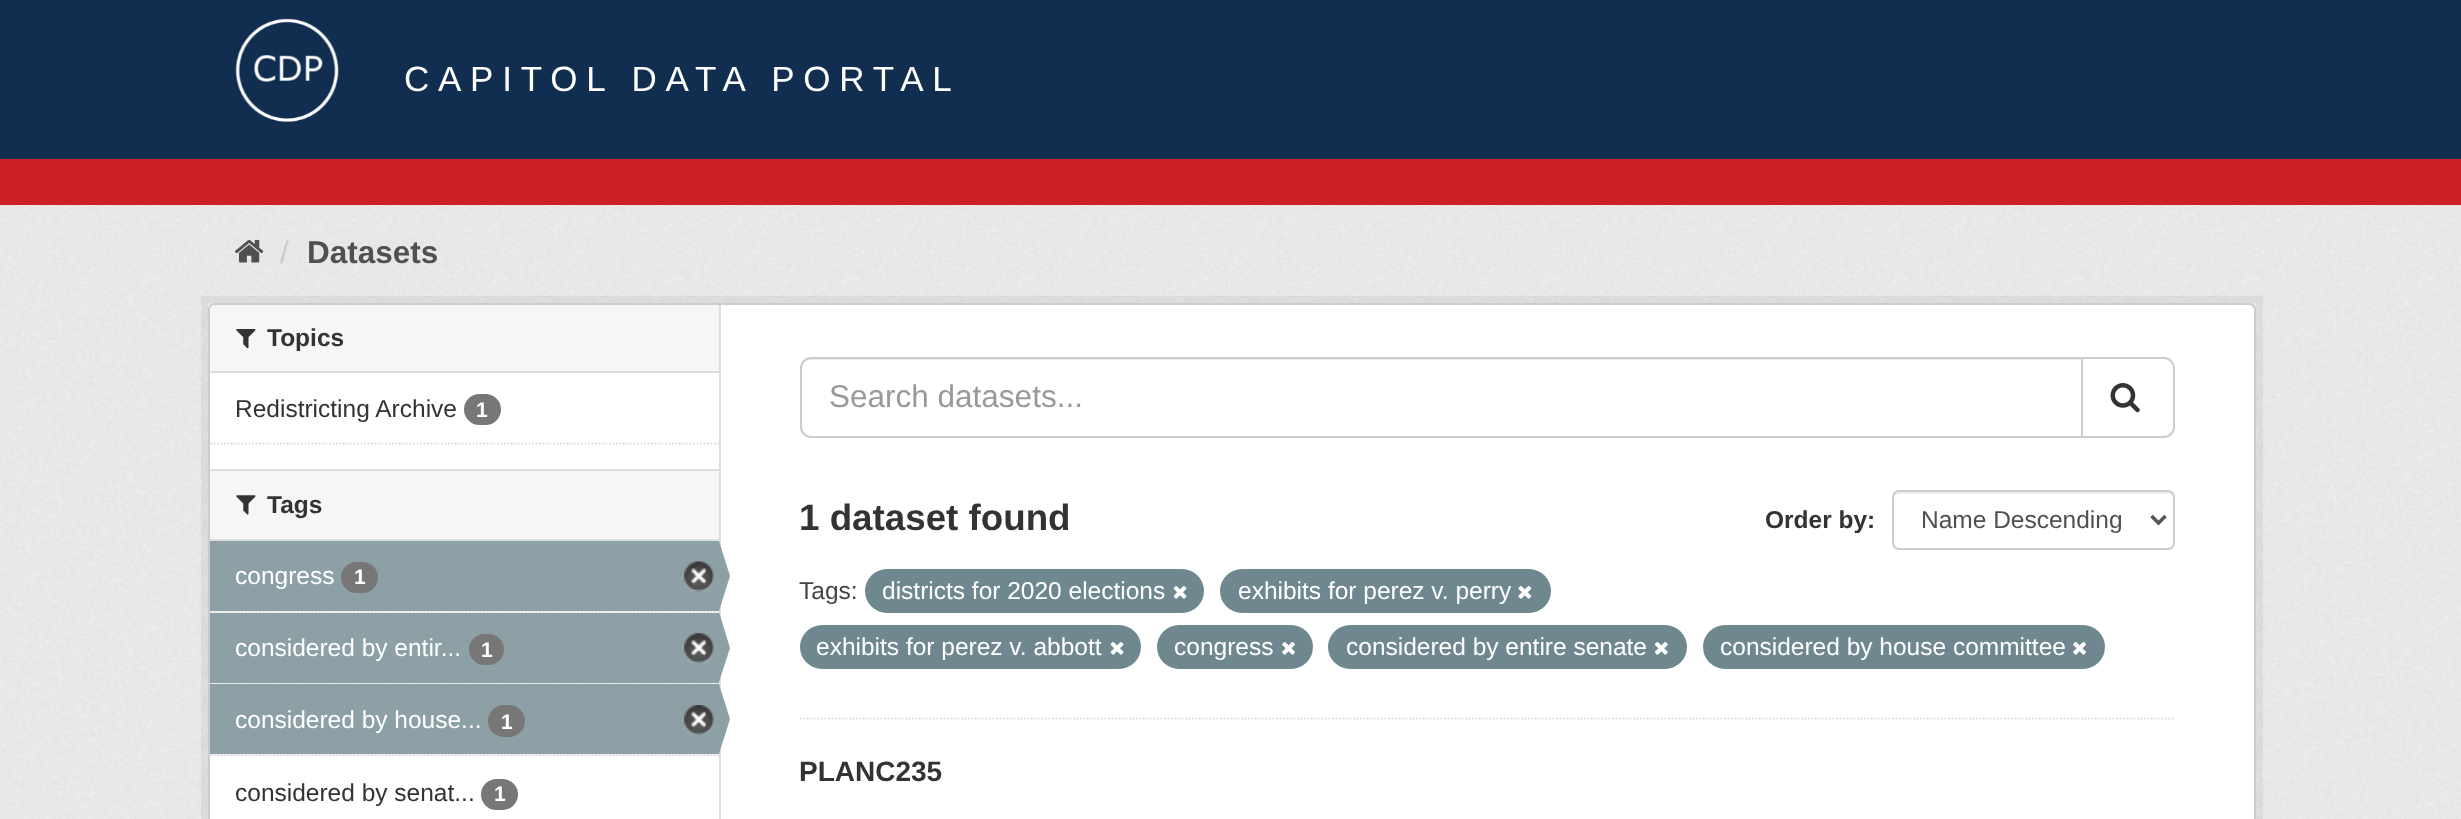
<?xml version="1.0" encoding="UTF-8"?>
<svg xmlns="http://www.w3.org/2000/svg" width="2461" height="819">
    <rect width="100%" height="100%" fill="#CD2026"/>
    <rect x="0" y="0" width="2461" height="159" fill="#112E51"/>
    <image x="235" y="18" width="104" height="104" href="img_01.png"/>
    <text x="404" y="91" font-family="Liberation Sans" font-size="35" letter-spacing="8.75" fill="#FFFFFF">CAPITOL DATA PORTAL</text>
    <rect x="0" y="205" width="2461" height="614" fill="#EEEEEE"/>
    <image x="0" y="205" width="2461" height="614" href="img_02.png"/>
    <image x="235" y="240" width="29" height="23" href="img_03.png"/>
    <text x="280" y="263" font-family="Liberation Sans" font-size="31.5" fill="#CCCCCC">/</text>
    <text x="307" y="263" font-family="Liberation Sans" font-size="31.5" font-weight="700" fill="#505050">Datasets</text>
    <rect x="204.5" y="299.5" width="2055" height="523" fill="none" stroke="#000000" stroke-opacity="0.05" stroke-width="7"/>
    <rect x="209" y="304" width="2046" height="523" rx="6" fill="#FFFFFF" stroke="#CCCCCC" stroke-width="2"/>
    <path d="M 215 305 H 719 V 373 H 210 V 310 C 210 307 212 305 215 305 Z" fill="#F6F6F6"/>
    <rect x="210" y="371" width="509" height="2" fill="#DDDDDD"/>
    <image x="236" y="329" width="20" height="20" href="img_04.png"/>
    <text x="267" y="346" font-family="Liberation Sans" font-size="24.5" font-weight="700" fill="#333333">Topics</text>
    <text x="235" y="417" font-family="Liberation Sans" font-size="24.5" fill="#333333">Redistricting Archive</text>
    <rect x="464" y="394" width="37" height="31" rx="15.5" fill="#777777"/>
    <text x="476" y="417" font-family="Liberation Sans" font-size="21" font-weight="700" fill="#FFFFFF">1</text>
    <path d="M 210 443.5 H 719" fill="none" stroke="#DDDDDD" stroke-width="1.8" stroke-dasharray="1.75 1.75"/>
    <rect x="210" y="471" width="509" height="68" fill="#F6F6F6"/>
    <rect x="210" y="469" width="509" height="2" fill="#DDDDDD"/>
    <rect x="210" y="539" width="509" height="2" fill="#DDDDDD"/>
    <image x="236" y="495" width="20" height="20" href="img_05.png"/>
    <text x="267" y="513" font-family="Liberation Sans" font-size="24.5" font-weight="700" fill="#333333">Tags</text>
    <rect x="210" y="611" width="509" height="2" fill="#F6F6F6"/>
    <path d="M 210 611.5 H 719" fill="none" stroke="#DDDDDD" stroke-width="1.8" stroke-dasharray="1.75 1.75"/>
    <rect x="210" y="541" width="509" height="70" fill="#8CA0A6"/>
    <text x="235" y="584" font-family="Liberation Sans" font-size="24.5" fill="#FFFFFF">congress</text>
    <rect x="341" y="562" width="37" height="31" rx="15.5" fill="#777777"/>
    <text x="354" y="584" font-family="Liberation Sans" font-size="21" font-weight="700" fill="#FFFFFF">1</text>
    <image x="684" y="561" width="30" height="31" href="img_06.png"/>
    <rect x="719" y="305" width="2" height="514" fill="#DDDDDD"/>
    <path d="M 719 611 V 541 L 730 576 Z" fill="#8CA0A6"/>
    <rect x="211" y="683" width="507" height="1" fill="#F6F6F6"/>
    <path d="M 210 683.5 H 719" fill="none" stroke="#DDDDDD" stroke-width="1.8" stroke-dasharray="1.75 1.75"/>
    <rect x="210" y="613" width="509" height="70" fill="#8CA0A6"/>
    <text x="235" y="656" font-family="Liberation Sans" font-size="24.5" fill="#FFFFFF">considered by entir...</text>
    <rect x="469" y="634" width="35" height="31" rx="15.5" fill="#777777"/>
    <text x="481" y="657" font-family="Liberation Sans" font-size="21" font-weight="700" fill="#FFFFFF">1</text>
    <image x="684" y="633" width="30" height="30" href="img_07.png"/>
    <path d="M 719 682 V 612 L 730 648 Z" fill="#8CA0A6"/>
    <rect x="210" y="754" width="509" height="2" fill="#F6F6F6"/>
    <path d="M 210 755 H 719" fill="none" stroke="#DDDDDD" stroke-width="1.8" stroke-dasharray="1.75 1.75"/>
    <rect x="210" y="684" width="509" height="70" fill="#8CA0A6"/>
    <text x="235" y="728" font-family="Liberation Sans" font-size="24.5" fill="#FFFFFF">considered by house...</text>
    <rect x="488" y="705" width="37" height="32" rx="16" fill="#777777"/>
    <text x="501" y="729" font-family="Liberation Sans" font-size="21" font-weight="700" fill="#FFFFFF">1</text>
    <image x="684" y="705" width="30" height="30" href="img_08.png"/>
    <path d="M 719 754 V 684 L 730 719 Z" fill="#8CA0A6"/>
    <text x="235" y="801" font-family="Liberation Sans" font-size="24.5" fill="#333333">considered by senat...</text>
    <rect x="481" y="779" width="37" height="31" rx="15.5" fill="#777777"/>
    <text x="494" y="801" font-family="Liberation Sans" font-size="21" font-weight="700" fill="#FFFFFF">1</text>
    <path d="M 800 718.5 H 2175" fill="none" stroke="#DDDDDD" stroke-width="1.8" stroke-dasharray="1.75 1.75"/>
    <path d="M 810 360 H 2081 V 359 H 811 C 806 359 802 363 802 368 V 369 C 802 364 805 360 810 360 Z" fill="#ECECEC"/>
    <path d="M 811 358 H 2082 V 437 H 811 C 805.5 437 801 432.5 801 427 V 368 C 801 362.5 805.5 358 811 358 Z" fill="none" stroke="#CCCCCC" stroke-width="2"/>
    <text x="829" y="407" font-family="Liberation Sans" font-size="31.5" fill="#999999">Search datasets...</text>
    <path d="M 2082 358 H 2164 C 2169.5 358 2174 362.5 2174 368 V 427 C 2174 432.5 2169.5 437 2164 437 H 2082 Z" fill="#FFFFFF" stroke="#CCCCCC" stroke-width="2"/>
    <image x="2110" y="383" width="30" height="30" href="img_09.png"/>
    <text x="799" y="530" font-family="Liberation Sans" font-size="36.75" font-weight="700" fill="#333333">1 dataset found</text>
    <text x="1765" y="528" font-family="Liberation Sans" font-size="24.5" font-weight="700" fill="#333333">Order by:</text>
    <path d="M 1899 494 H 2168 C 2171 494 2174 496 2174 499 V 497 C 2174 494 2172 492 2169 492 H 1899 C 1896 492 1894 494 1894 497 V 499 C 1894 496 1896 494 1899 494 Z" fill="#ECECEC"/>
    <rect x="1893" y="491" width="281" height="58" rx="6" fill="none" stroke="#CCCCCC" stroke-width="2"/>
    <path d="M 2151.5 516 L 2158.5 523 L 2165.5 516" fill="none" stroke="#555555" stroke-width="3.5"/>
    <text x="1921" y="528" font-family="Liberation Sans" font-size="24.5" fill="#505050">Name Descending</text>
    <text x="799" y="599" font-family="Liberation Sans" font-size="24.5" fill="#444444">Tags:</text>
    <rect x="865" y="569" width="339" height="44" rx="22" fill="#6F8890"/>
    <text x="882" y="599" font-family="Liberation Sans" font-size="24.5" fill="#FFFFFF">districts for 2020 elections</text>
    <image x="1173" y="586" width="14" height="13" href="img_10.png"/>
    <rect x="1220" y="569" width="331" height="44" rx="22" fill="#6F8890"/>
    <text x="1238" y="599" font-family="Liberation Sans" font-size="24.5" fill="#FFFFFF">exhibits for perez v. perry</text>
    <image x="1518" y="586" width="14" height="13" href="img_11.png"/>
    <rect x="800" y="625" width="341" height="44" rx="22" fill="#6F8890"/>
    <text x="816" y="655" font-family="Liberation Sans" font-size="24.5" fill="#FFFFFF">exhibits for perez v. abbott</text>
    <image x="1110" y="642" width="14" height="13" href="img_10.png"/>
    <rect x="1157" y="625" width="156" height="44" rx="22" fill="#6F8890"/>
    <text x="1174" y="655" font-family="Liberation Sans" font-size="24.5" fill="#FFFFFF">congress</text>
    <image x="1282" y="642" width="13" height="13" href="img_12.png"/>
    <rect x="1328" y="625" width="359" height="44" rx="22" fill="#6F8890"/>
    <text x="1346" y="655" font-family="Liberation Sans" font-size="24.5" fill="#FFFFFF">considered by entire senate</text>
    <image x="1655" y="642" width="13" height="13" href="img_13.png"/>
    <rect x="1703" y="625" width="402" height="44" rx="22" fill="#6F8890"/>
    <text x="1720" y="655" font-family="Liberation Sans" font-size="24.5" fill="#FFFFFF">considered by house committee</text>
    <image x="2073" y="642" width="13" height="13" href="img_12.png"/>
    <text x="799" y="781" font-family="Liberation Sans" font-size="28" font-weight="700" fill="#333333">PLANC235</text>
</svg>
